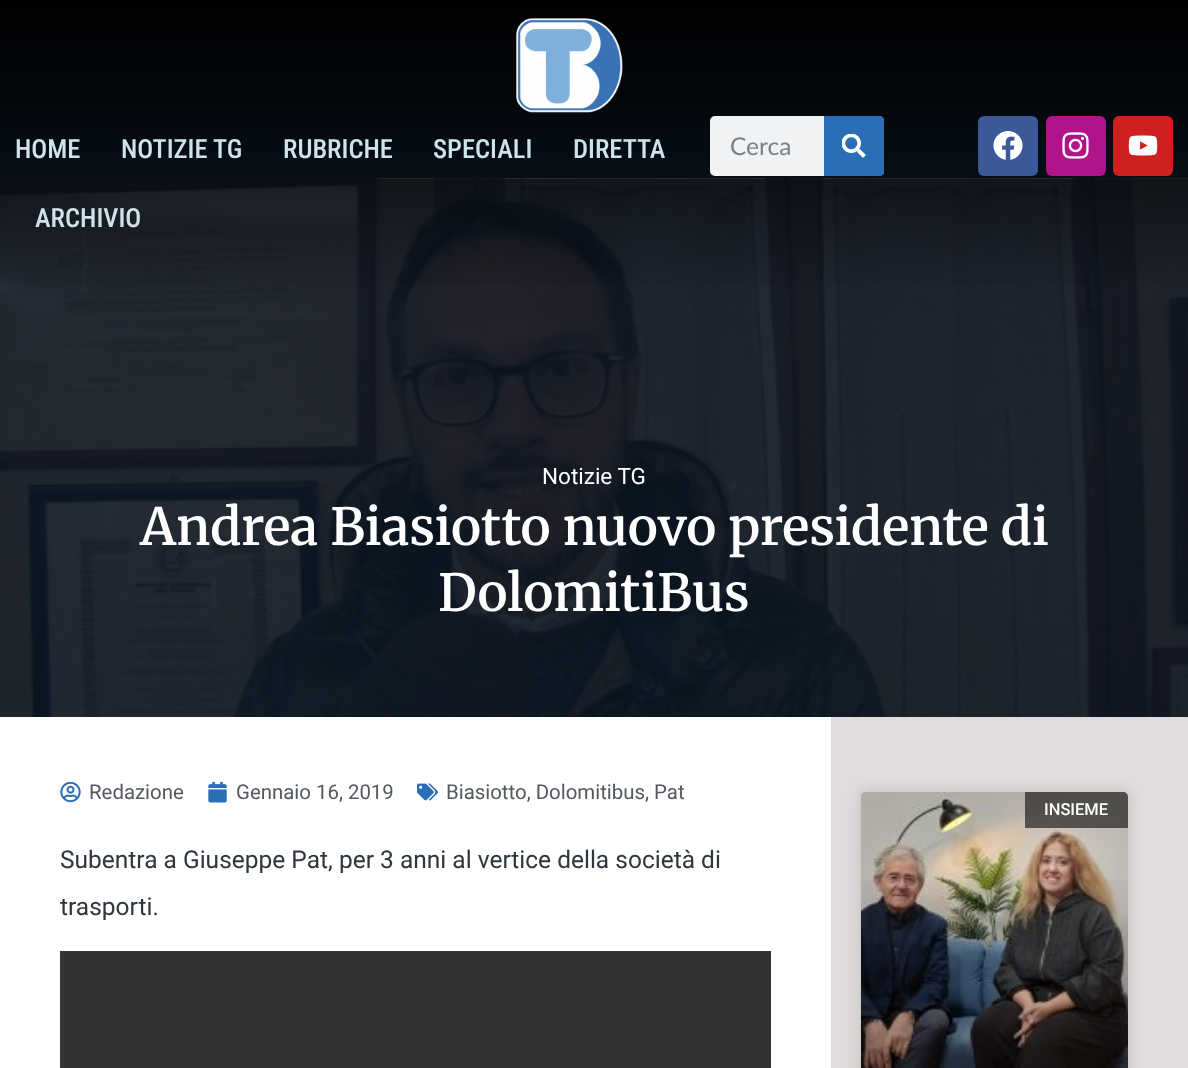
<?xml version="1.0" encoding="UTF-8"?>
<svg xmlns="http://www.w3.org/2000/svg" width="1188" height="1068">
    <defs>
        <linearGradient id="g1" gradientUnits="userSpaceOnUse" x1="594" y1="0" x2="594" y2="299"><stop offset="0" stop-color="#000000"/><stop offset="1" stop-color="#000000" stop-opacity="0"/></linearGradient>
        <filter id="blur1" x="-50%" y="-200%" width="200%" height="500%"><feGaussianBlur stdDeviation="7.5"/></filter>
        <linearGradient id="g2" gradientUnits="userSpaceOnUse" x1="995" y1="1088" x2="995" y2="792"><stop offset="0" stop-color="#000000" stop-opacity="0.35"/><stop offset="0.75" stop-color="#000000" stop-opacity="0"/></linearGradient>
    </defs>
    <rect width="100%" height="100%" fill="#0B1725"/>
    <image x="0" y="178" width="1188" height="539" href="img_06.png"/>
    <rect x="0" y="0" width="1188" height="286" fill="url(#g1)"/>
    <image x="516" y="18" width="107" height="95" href="img_01.png"/>
    <text x="15" y="158" font-family="Roboto Condensed" font-size="26.5" font-weight="500" fill="#CFE3EB">HOME</text>
    <text x="121" y="158" font-family="Roboto Condensed" font-size="26.5" font-weight="500" fill="#CFE3EB">NOTIZIE TG</text>
    <text x="283" y="158" font-family="Roboto Condensed" font-size="26.5" font-weight="500" fill="#CFE3EB">RUBRICHE</text>
    <text x="433" y="158" font-family="Roboto Condensed" font-size="26.5" font-weight="500" fill="#CFE3EB">SPECIALI</text>
    <text x="573" y="158" font-family="Roboto Condensed" font-size="26.5" font-weight="500" fill="#CFE3EB">DIRETTA</text>
    <text x="35" y="227" font-family="Roboto Condensed" font-size="26.5" font-weight="500" fill="#CFE3EB">ARCHIVIO</text>
    <rect x="710" y="116" width="174" height="60" rx="5" fill="#F1F2F3"/>
    <text x="730" y="155" font-family="Lato" font-size="24.5" fill="#7D8186">Cerca</text>
    <path d="M 824 116 H 879 C 882 116 884 118 884 121 V 171 C 884 174 882 176 879 176 H 824 Z" fill="#2A6EB5"/>
    <image x="842" y="134" width="24" height="24" href="img_02.png"/>
    <rect x="978" y="116" width="60" height="60" rx="6" fill="#3B5998"/>
    <image x="993" y="131" width="30" height="29" href="img_03.png"/>
    <rect x="1046" y="116" width="60" height="60" rx="6" fill="#B1138B"/>
    <image x="1062" y="132" width="27" height="27" href="img_04.png"/>
    <rect x="1113" y="116" width="60" height="60" rx="6" fill="#CD201F"/>
    <image x="1128" y="135" width="30" height="21" href="img_05.png"/>
    <text x="542" y="484" font-family="Roboto" font-size="22.5" fill="#FFFFFF">Notizie TG</text>
    <text x="140" y="545" font-family="Merriweather" font-size="51" font-weight="600" fill="#FFFFFF">Andrea Biasiotto nuovo presidente di</text>
    <text x="438" y="611" font-family="Merriweather" font-size="51" font-weight="600" fill="#FFFFFF">DolomitiBus</text>
    <rect x="0" y="717" width="831" height="351" fill="#FFFFFF"/>
    <image x="60" y="782" width="21" height="21" href="img_07.png"/>
    <text x="89" y="799" font-family="Roboto" font-size="20.4" fill="#54595F">Redazione</text>
    <image x="208" y="782" width="19" height="21" href="img_08.png"/>
    <text x="236" y="799" font-family="Roboto" font-size="20.4" fill="#54595F">Gennaio 16, 2019</text>
    <image x="417" y="783" width="21" height="18" href="img_09.png"/>
    <text x="446" y="799" font-family="Roboto" font-size="20.4" fill="#54595F">Biasiotto, Dolomitibus, Pat</text>
    <text font-family="Roboto" font-size="24.5" fill="#30363D">
        <tspan x="60" y="868">Subentra a Giuseppe Pat, per 3 anni al vertice della società di</tspan>
        <tspan x="60" y="915">trasporti.</tspan>
    </text>
    <rect x="60" y="951" width="711" height="117" fill="#333333"/>
    <rect x="831" y="717" width="357" height="351" fill="#E0DCDC"/>
    <rect x="861" y="792" width="267" height="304" rx="5" fill="#000000" fill-opacity="0.15" filter="url(#blur1)"/>
    <image x="861" y="792" width="267" height="276" href="img_10.png"/>
    <rect x="861" y="880" width="267" height="188" fill="url(#g2)"/>
    <path d="M 1025 792 H 1123 C 1126 792 1128 794 1128 797 V 828 H 1025 Z" fill="#020101" fill-opacity="0.58"/>
    <text x="1044" y="815" font-family="Roboto" font-size="16.5" font-weight="500" fill="#FFFFFF">INSIEME</text>
</svg>
